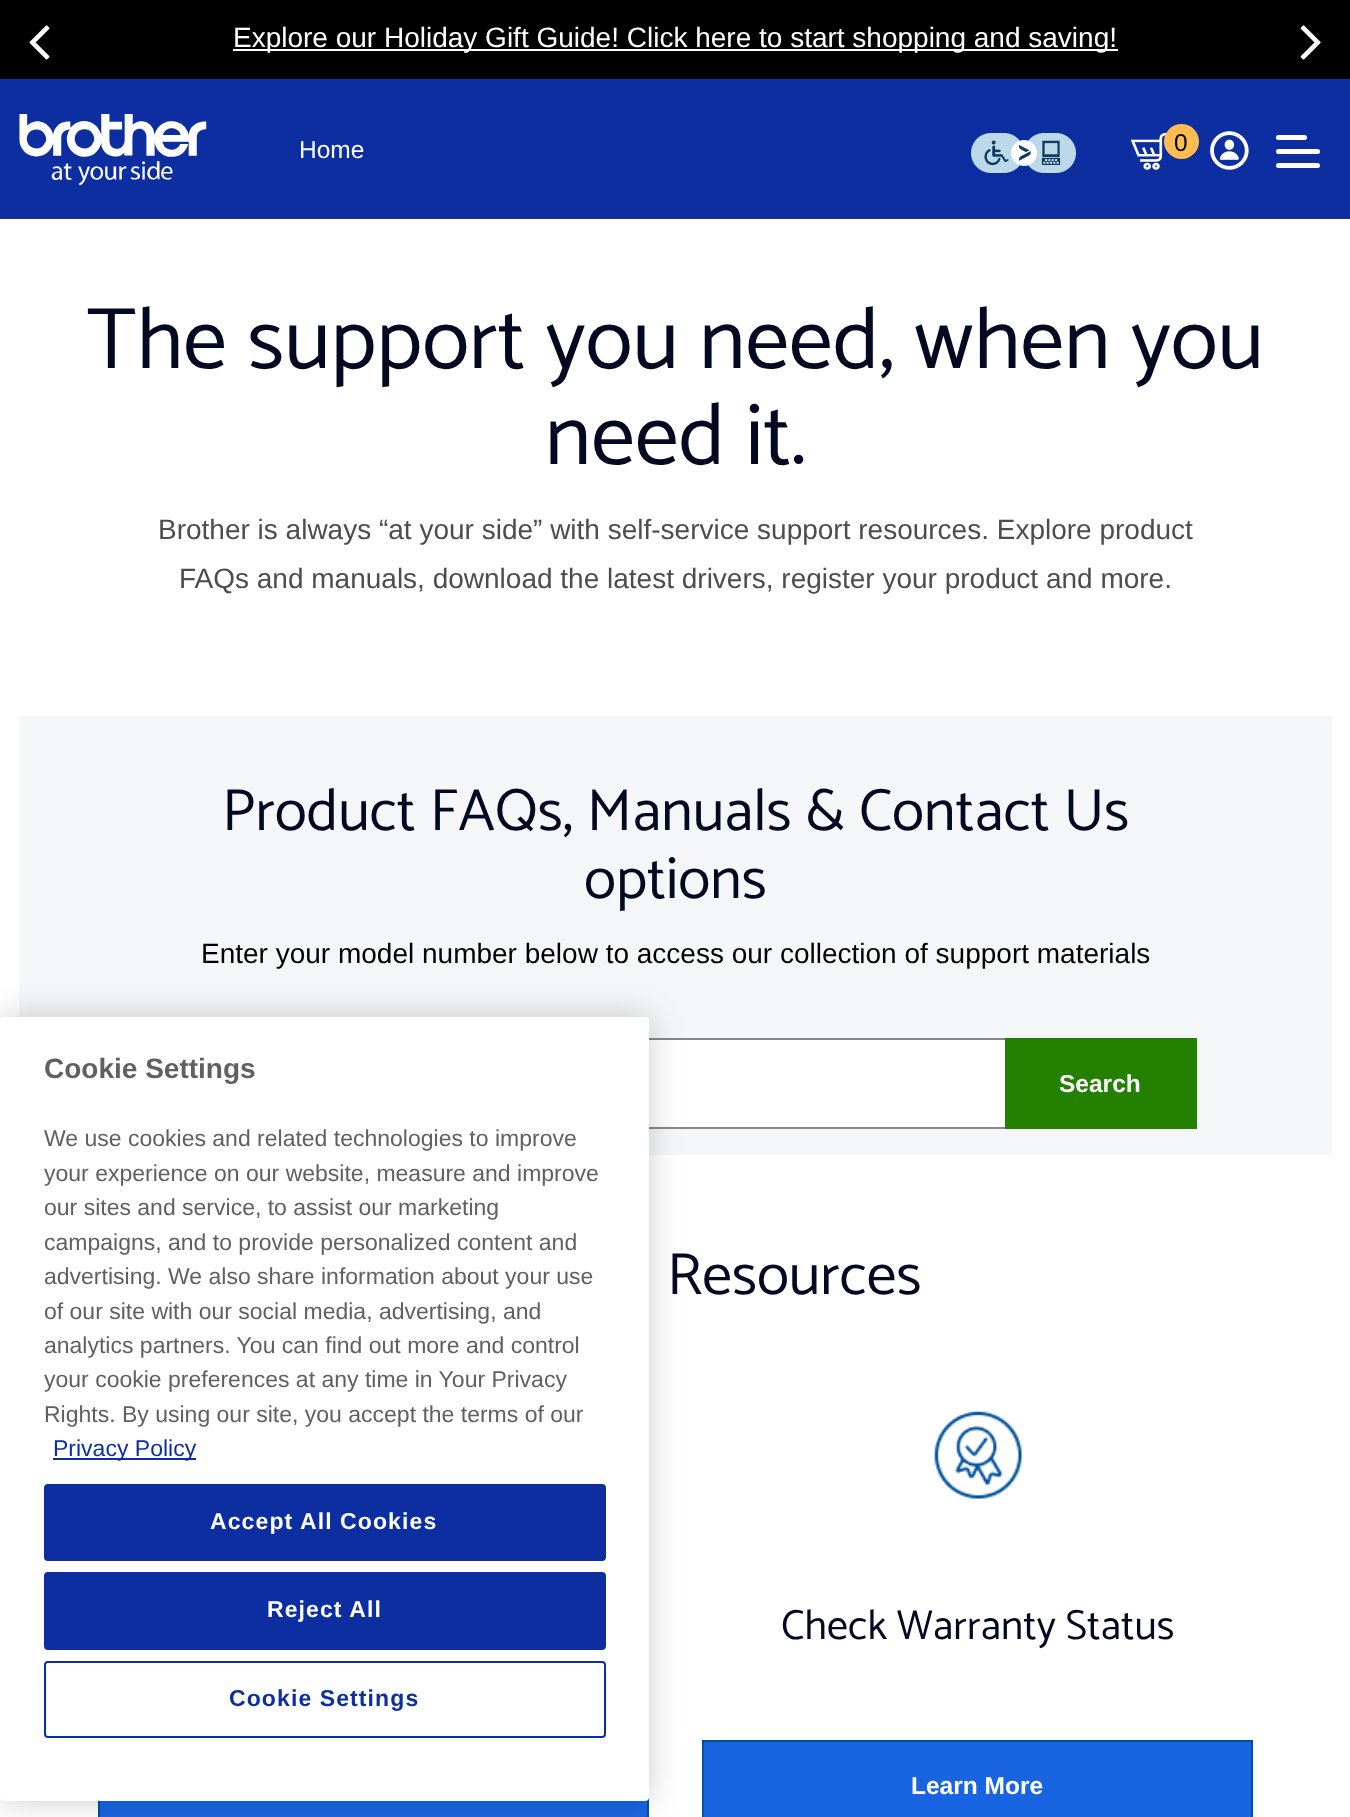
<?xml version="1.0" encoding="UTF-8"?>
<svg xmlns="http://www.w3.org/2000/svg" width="1350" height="1817">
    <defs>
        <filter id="blur1" x="-50%" y="-200%" width="200%" height="500%"><feGaussianBlur stdDeviation="16"/></filter>
    </defs>
    <rect width="100%" height="100%" fill="#FFFFFF"/>
    <rect x="0" y="0" width="1350" height="79" fill="#000000"/>
    <image x="29" y="25" width="21" height="35" href="img_01.png"/>
    <rect x="233" y="49" width="885" height="2" fill="#FFFFFF"/>
    <text x="233" y="47" font-family="Liberation Sans" font-size="28" fill="#FFFFFF">Explore our Holiday Gift Guide! Click here to start shopping and saving!</text>
    <image x="1300" y="25" width="21" height="35" href="img_02.png"/>
    <rect x="0" y="79" width="1350" height="140" fill="#0D2EA0"/>
    <image x="19" y="114" width="188" height="72" href="img_03.png"/>
    <text x="299" y="158" font-family="Liberation Sans" font-size="24.5" fill="#FFFFFF">Home</text>
    <image x="971" y="133" width="105" height="40" href="img_04.png"/>
    <image x="1131" y="133" width="36" height="37" href="img_05.png"/>
    <circle cx="1181.5" cy="141.5" r="17.5" fill="#FFBD51"/>
    <text x="1174" y="151" font-family="Liberation Sans" font-size="24.5" fill="#000000">0</text>
    <image x="1210" y="131" width="39" height="39" href="img_06.png"/>
    <rect x="1276" y="149" width="44" height="5" rx="2.5" fill="#FFFFFF"/>
    <rect x="1276" y="135" width="31" height="5" rx="2.5" fill="#FFFFFF"/>
    <rect x="1276" y="163" width="44" height="5" rx="2.5" fill="#FFFFFF"/>
    <text x="87" y="368" font-family="Catamaran" font-size="87.5" fill="#020920">The support you need, when you</text>
    <text x="545" y="464" font-family="Catamaran" font-size="87.5" fill="#020920">need it.</text>
    <text x="158" y="539" font-family="Liberation Sans" font-size="28" fill="#4D4D4D">Brother is always “at your side” with self-service support resources. Explore product</text>
    <text x="179" y="588" font-family="Liberation Sans" font-size="28" fill="#4D4D4D">FAQs and manuals, download the latest drivers, register your product and more.</text>
    <rect x="19" y="716" width="1313" height="439" fill="#F5F6F8"/>
    <text x="222" y="830" font-family="Catamaran" font-size="59.5" fill="#020920">Product FAQs, Manuals &amp; Contact Us</text>
    <text x="584" y="898" font-family="Catamaran" font-size="59.5" fill="#020920">options</text>
    <text x="201" y="963" font-family="Liberation Sans" font-size="28" fill="#000000">Enter your model number below to access our collection of support materials</text>
    <rect x="649" y="1040" width="356" height="87" fill="#FFFFFF"/>
    <rect x="157" y="1039" width="1039" height="89" fill="none" stroke="#878787" stroke-width="2"/>
    <rect x="1005" y="1038" width="192" height="91" fill="#248000"/>
    <text x="1059" y="1092" font-family="Liberation Sans" font-size="24.5" font-weight="700" fill="#FFFFFF">Search</text>
    <text x="667" y="1294" font-family="Catamaran" font-size="59.5" fill="#020920">Resources</text>
    <rect x="100" y="1800" width="547" height="17" fill="#1965E1"/>
    <rect x="99" y="1742" width="549" height="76" fill="none" stroke="#0250A3" stroke-width="2"/>
    <image x="934" y="1411" width="88" height="88" href="img_07.png"/>
    <text x="781" y="1639" font-family="Catamaran" font-size="42" fill="#020920">Check Warranty Status</text>
    <rect x="703" y="1741" width="549" height="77" fill="#1965E1" stroke="#0250A3" stroke-width="2"/>
    <text x="911" y="1794" font-family="Liberation Sans" font-size="24.5" font-weight="700" fill="#FFFFFF">Learn More</text>
    <rect x="0" y="1017" width="649" height="784" rx="4" fill="#000000" fill-opacity="0.2" filter="url(#blur1)"/>
    <rect x="0" y="1017" width="649" height="784" rx="4" fill="#FFFFFF"/>
    <text x="44" y="1078" font-family="Liberation Sans" font-size="28" font-weight="700" fill="#606060">Cookie Settings</text>
    <text font-family="Liberation Sans" font-size="23" fill="#606060">
        <tspan x="44" y="1146">We use cookies and related technologies to improve</tspan>
        <tspan x="44" y="1181">your experience on our website, measure and improve</tspan>
        <tspan x="44" y="1215">our sites and service, to assist our marketing</tspan>
        <tspan x="44" y="1250">campaigns, and to provide personalized content and</tspan>
        <tspan x="44" y="1284">advertising. We also share information about your use</tspan>
        <tspan x="44" y="1319">of our site with our social media, advertising, and</tspan>
        <tspan x="44" y="1353">analytics partners. You can find out more and control</tspan>
        <tspan x="44" y="1387">your cookie preferences at any time in Your Privacy</tspan>
        <tspan x="44" y="1422">Rights. By using our site, you accept the terms of our</tspan>
    </text>
    <rect x="53" y="1458" width="143" height="2" fill="#0D2EA0"/>
    <text x="53" y="1456" font-family="Liberation Sans" font-size="23" fill="#0D2EA0">Privacy Policy</text>
    <rect x="45" y="1485" width="560" height="75" rx="3" fill="#0D2EA0" stroke="#0D2EA0" stroke-width="2"/>
    <text x="210" y="1529" font-family="Liberation Sans" font-size="23" font-weight="700" letter-spacing="1.1" fill="#FFFFFF">Accept All Cookies</text>
    <rect x="45" y="1573" width="560" height="76" rx="3" fill="#0D2EA0" stroke="#0D2EA0" stroke-width="2"/>
    <text x="267" y="1617" font-family="Liberation Sans" font-size="23" font-weight="700" letter-spacing="1.1" fill="#FFFFFF">Reject All</text>
    <rect x="45" y="1662" width="560" height="75" rx="3" fill="none" stroke="#0D2EA0" stroke-width="2"/>
    <text x="229" y="1706" font-family="Liberation Sans" font-size="23" font-weight="700" letter-spacing="1.1" fill="#0D2EA0">Cookie Settings</text>
</svg>
